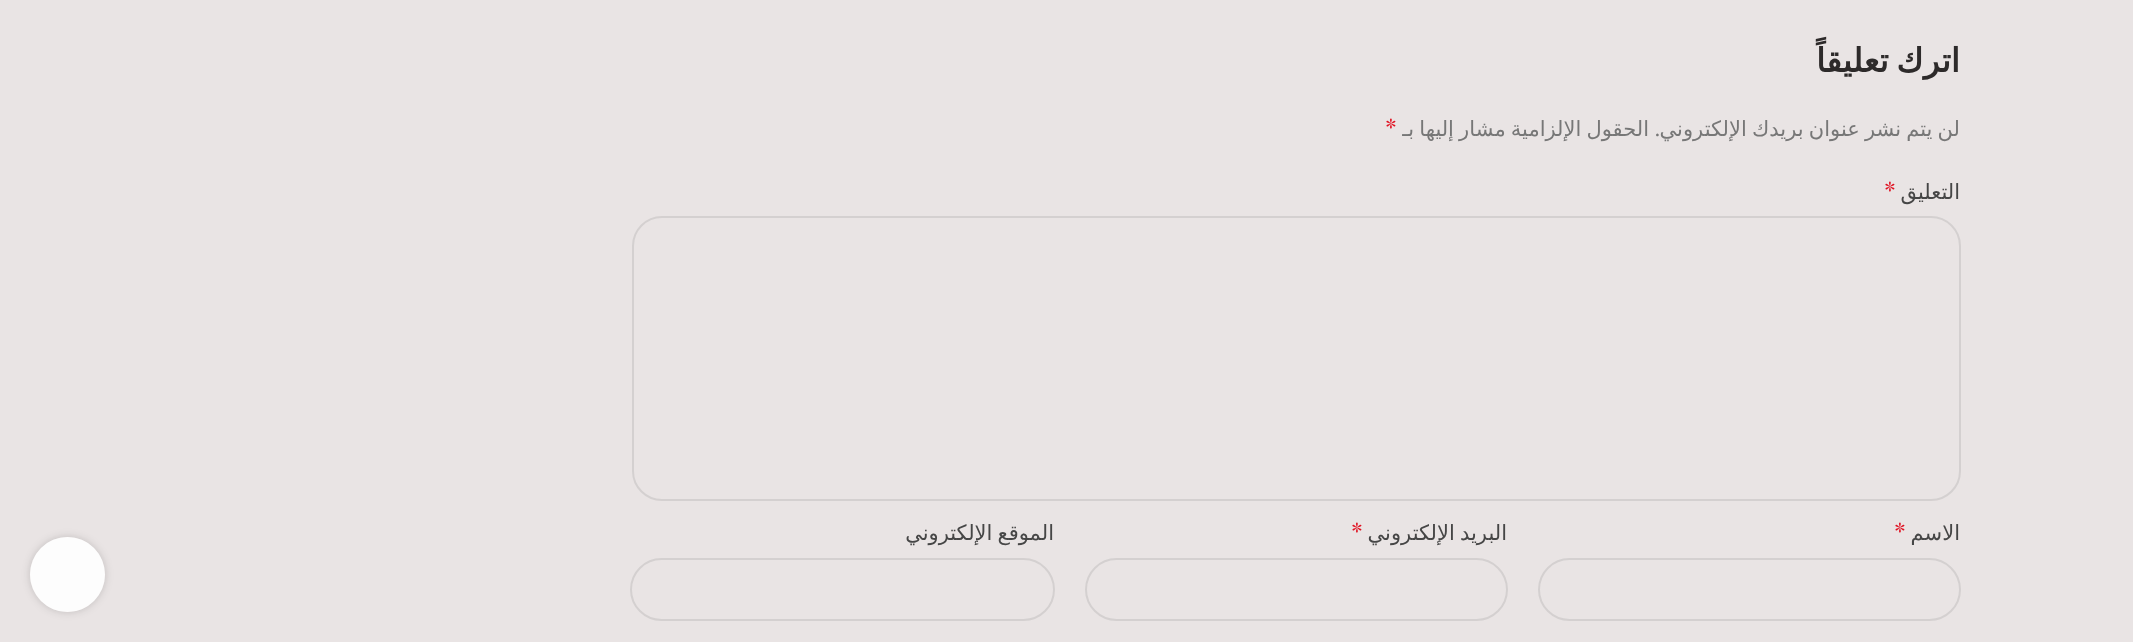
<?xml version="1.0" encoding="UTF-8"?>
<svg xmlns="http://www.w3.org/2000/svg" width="2133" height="642">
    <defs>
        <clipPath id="clip1"><path d="M 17 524 H 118 V 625 H 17 Z M 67.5 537 C 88 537 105 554 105 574.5 C 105 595 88 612 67.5 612 C 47 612 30 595 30 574.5 C 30 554 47 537 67.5 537 Z" clip-rule="evenodd"/></clipPath>
        <filter id="blur1" x="-50%" y="-200%" width="200%" height="500%"><feGaussianBlur stdDeviation="4"/></filter>
    </defs>
    <rect width="100%" height="100%" fill="#E9E4E4"/>
    <text x="1960" y="72" word-spacing="-3" font-family="DejaVu Sans" font-size="33" font-weight="700" direction="rtl" fill="#2D2A2A">اترك تعليقاً</text>
    <text x="1960" y="136" word-spacing="-1.5" font-family="DejaVu Sans" font-size="21" direction="rtl" fill="#777777">لن يتم نشر عنوان بريدك الإلكتروني</text>
    <text x="1660" y="136" font-family="Playfair Display" font-size="21" direction="rtl" fill="#777777">.</text>
    <text x="1649" y="136" word-spacing="-1.5" font-family="DejaVu Sans" font-size="21" direction="rtl" fill="#777777">الحقول الإلزامية مشار إليها بـ</text>
    <text x="1385" y="136" font-family="Playfair Display" font-size="24" fill="#E01020">*</text>
    <text x="1960" y="199" font-family="DejaVu Sans" font-size="21" direction="rtl" fill="#464646">التعليق</text>
    <text x="1884" y="199" font-family="Playfair Display" font-size="24" fill="#E01020">*</text>
    <rect x="633" y="217" width="1327" height="283" rx="29" fill="none" stroke="#D4D0D0" stroke-width="2"/>
    <text x="1960" y="540" font-family="DejaVu Sans" font-size="21" direction="rtl" fill="#464646">الاسم</text>
    <text x="1894" y="540" font-family="Playfair Display" font-size="24" fill="#E01020">*</text>
    <rect x="1539" y="559" width="421" height="61" rx="30.5" fill="none" stroke="#D4D0D0" stroke-width="2"/>
    <text x="1507" y="540" word-spacing="-1.5" font-family="DejaVu Sans" font-size="21" direction="rtl" fill="#464646">البريد الإلكتروني</text>
    <text x="1351" y="540" font-family="Playfair Display" font-size="24" fill="#E01020">*</text>
    <rect x="1086" y="559" width="421" height="61" rx="30.5" fill="none" stroke="#D4D0D0" stroke-width="2"/>
    <text x="1054" y="540" word-spacing="-1.5" font-family="DejaVu Sans" font-size="21" direction="rtl" fill="#464646">الموقع الإلكتروني</text>
    <rect x="631" y="559" width="423" height="61" rx="30.5" fill="none" stroke="#D4D0D0" stroke-width="2"/>
    <g clip-path="url(#clip1)">
        <rect x="30" y="537" width="75" height="75" rx="37.5" fill="#000000" fill-opacity="0.17" filter="url(#blur1)"/>
    </g>
    <circle cx="67.5" cy="574.5" r="37.5" fill="#FFFFFF" fill-opacity="0.9"/>
</svg>
